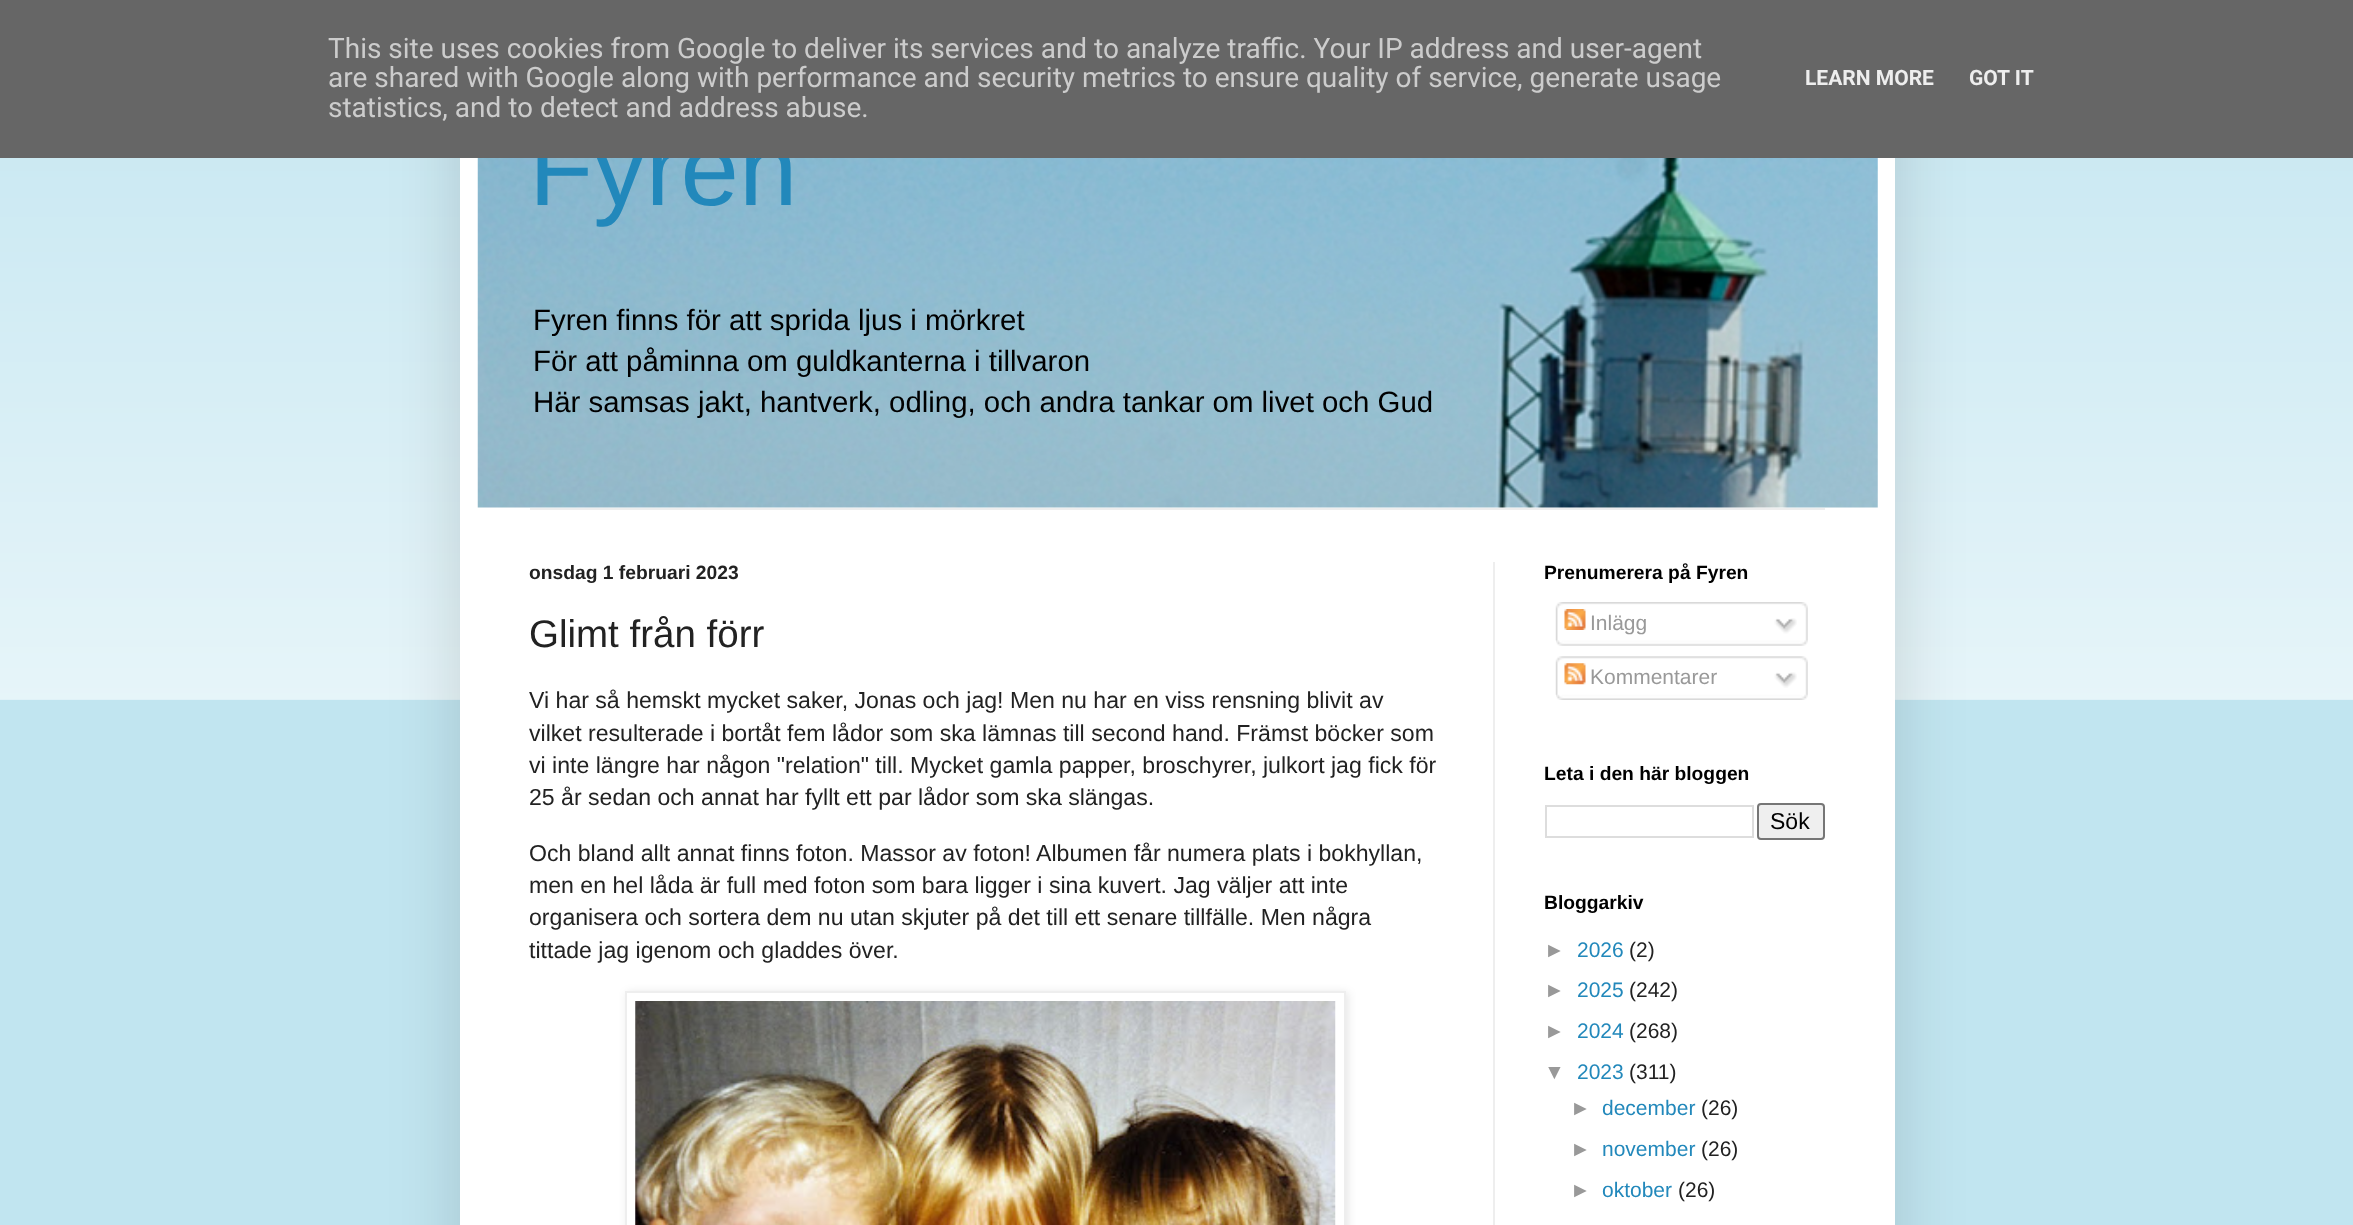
<?xml version="1.0" encoding="UTF-8"?>
<svg xmlns="http://www.w3.org/2000/svg" width="2353" height="1225">
    <defs>
        <filter id="blur1" x="-50%" y="-200%" width="200%" height="500%"><feGaussianBlur stdDeviation="35"/></filter>
        <filter id="blur2" x="-50%" y="-200%" width="200%" height="500%"><feGaussianBlur stdDeviation="4.5"/></filter>
    </defs>
    <rect width="100%" height="100%" fill="#C1E5F0"/>
    <image x="0" y="158" width="2353" height="542" href="img_11.png"/>
    <rect x="460" y="53" width="1435" height="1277" fill="#000000" fill-opacity="0.15" filter="url(#blur1)"/>
    <rect x="460" y="158" width="1435" height="1067" fill="#FFFFFF"/>
    <image x="477" y="158" width="1401" height="350" href="img_01.png"/>
    <text x="529" y="205" font-family="Liberation Sans" font-size="105" fill="#2288BB">Fyren</text>
    <rect x="0" y="0" width="2353" height="158" fill="#666666"/>
    <text font-family="Roboto" font-size="28" fill="#CCCCCC">
        <tspan x="328" y="58">This site uses cookies from Google to deliver its services and to analyze traffic. Your IP address and user-agent</tspan>
        <tspan x="328" y="87">are shared with Google along with performance and security metrics to ensure quality of service, generate usage</tspan>
        <tspan x="328" y="117">statistics, and to detect and address abuse.</tspan>
    </text>
    <text x="1805" y="85" font-family="Roboto" font-size="21" font-weight="700" fill="#EEEEEE">LEARN MORE</text>
    <text x="1969" y="85" font-family="Roboto" font-size="21" font-weight="700" fill="#EEEEEE">GOT IT</text>
    <text font-family="Liberation Sans" font-size="29.4" fill="#000000">
        <tspan x="533" y="330">Fyren finns för att sprida ljus i mörkret</tspan>
        <tspan x="533" y="371">För att påminna om guldkanterna i tillvaron</tspan>
        <tspan x="533" y="412">Här samsas jakt, hantverk, odling, och andra tankar om livet och Gud</tspan>
    </text>
    <rect x="530" y="508" width="1295" height="2" fill="#EEEEEE"/>
    <rect x="1493" y="562" width="2" height="663" fill="#EEEEEE"/>
    <text x="529" y="579" font-family="Liberation Sans" font-size="19.25" font-weight="700" fill="#222222">onsdag 1 februari 2023</text>
    <text x="529" y="647" font-family="Liberation Sans" font-size="38.5" fill="#222222">Glimt från förr</text>
    <text font-family="Liberation Sans" font-size="23.1" fill="#222222">
        <tspan x="529" y="708">Vi har så hemskt mycket saker, Jonas och jag! Men nu har en viss rensning blivit av</tspan>
        <tspan x="529" y="741">vilket resulterade i bortåt fem lådor som ska lämnas till second hand. Främst böcker som</tspan>
        <tspan x="529" y="773">vi inte längre har någon "relation" till. Mycket gamla papper, broschyrer, julkort jag fick för</tspan>
        <tspan x="529" y="805">25 år sedan och annat har fyllt ett par lådor som ska slängas.</tspan>
    </text>
    <text font-family="Liberation Sans" font-size="23.1" fill="#222222">
        <tspan x="529" y="861">Och bland allt annat finns foton. Massor av foton! Albumen får numera plats i bokhyllan,</tspan>
        <tspan x="529" y="893">men en hel låda är full med foton som bara ligger i sina kuvert. Jag väljer att inte</tspan>
        <tspan x="529" y="925">organisera och sortera dem nu utan skjuter på det till ett senare tillfälle. Men några</tspan>
        <tspan x="529" y="958">tittade jag igenom och gladdes över.</tspan>
    </text>
    <rect x="627" y="992" width="721" height="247" fill="#000000" fill-opacity="0.1" filter="url(#blur2)"/>
    <rect x="626" y="992" width="719" height="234" fill="#FFFFFF" stroke="#EEEEEE" stroke-width="2"/>
    <image x="635" y="1001" width="701" height="224" href="img_02.png"/>
    <text x="1544" y="579" font-family="Liberation Sans" font-size="19.25" font-weight="700" fill="#000000">Prenumerera på Fyren</text>
    <image x="1555" y="602" width="253" height="39" href="img_03.png"/>
    <image x="1564" y="609" width="22" height="21" href="img_04.png"/>
    <text x="1590" y="630" font-family="Liberation Sans" font-size="21" fill="#999999">Inlägg</text>
    <image x="1774" y="618" width="23" height="16" href="img_05.png"/>
    <image x="1556" y="640" width="252" height="6" href="img_06.png"/>
    <image x="1555" y="656" width="253" height="39" href="img_07.png"/>
    <image x="1564" y="663" width="22" height="22" href="img_08.png"/>
    <text x="1590" y="684" font-family="Liberation Sans" font-size="21" fill="#999999">Kommentarer</text>
    <image x="1774" y="672" width="23" height="16" href="img_09.png"/>
    <image x="1556" y="694" width="252" height="6" href="img_10.png"/>
    <text x="1544" y="780" font-family="Liberation Sans" font-size="19.25" font-weight="700" fill="#000000">Leta i den här bloggen</text>
    <rect x="1546" y="806" width="207" height="31" fill="none" stroke="#DDDDDD" stroke-width="2"/>
    <rect x="1758" y="804" width="66" height="35" rx="3" fill="#EFEFEF" stroke="#767676" stroke-width="2"/>
    <text x="1770" y="829" font-family="Liberation Sans" font-size="23" fill="#000000">Sök</text>
    <text x="1544" y="909" font-family="Liberation Sans" font-size="19.25" font-weight="700" fill="#000000">Bloggarkiv</text>
    <text x="1544" y="957" font-family="Liberation Sans" font-size="21" fill="#999999">►</text>
    <text x="1577" y="957" font-family="Liberation Sans" font-size="21" fill="#2288BB">2026</text>
    <text x="1629" y="957" font-family="Liberation Sans" font-size="21" fill="#222222">(2)</text>
    <text x="1544" y="997" font-family="Liberation Sans" font-size="21" fill="#999999">►</text>
    <text x="1577" y="997" font-family="Liberation Sans" font-size="21" fill="#2288BB">2025</text>
    <text x="1629" y="997" font-family="Liberation Sans" font-size="21" fill="#222222">(242)</text>
    <text x="1544" y="1038" font-family="Liberation Sans" font-size="21" fill="#999999">►</text>
    <text x="1577" y="1038" font-family="Liberation Sans" font-size="21" fill="#2288BB">2024</text>
    <text x="1629" y="1038" font-family="Liberation Sans" font-size="21" fill="#222222">(268)</text>
    <text x="1544" y="1079" font-family="Liberation Sans" font-size="21" fill="#999999">▼</text>
    <text x="1577" y="1079" font-family="Liberation Sans" font-size="21" fill="#2288BB">2023</text>
    <text x="1629" y="1079" font-family="Liberation Sans" font-size="21" fill="#222222">(311)</text>
    <text x="1570" y="1115" font-family="Liberation Sans" font-size="21" fill="#999999">►</text>
    <text x="1602" y="1115" font-family="Liberation Sans" font-size="21" fill="#2288BB">december</text>
    <text x="1701" y="1115" font-family="Liberation Sans" font-size="21" fill="#222222">(26)</text>
    <text x="1570" y="1156" font-family="Liberation Sans" font-size="21" fill="#999999">►</text>
    <text x="1602" y="1156" font-family="Liberation Sans" font-size="21" fill="#2288BB">november</text>
    <text x="1701" y="1156" font-family="Liberation Sans" font-size="21" fill="#222222">(26)</text>
    <text x="1570" y="1197" font-family="Liberation Sans" font-size="21" fill="#999999">►</text>
    <text x="1602" y="1197" font-family="Liberation Sans" font-size="21" fill="#2288BB">oktober</text>
    <text x="1678" y="1197" font-family="Liberation Sans" font-size="21" fill="#222222">(26)</text>
</svg>
